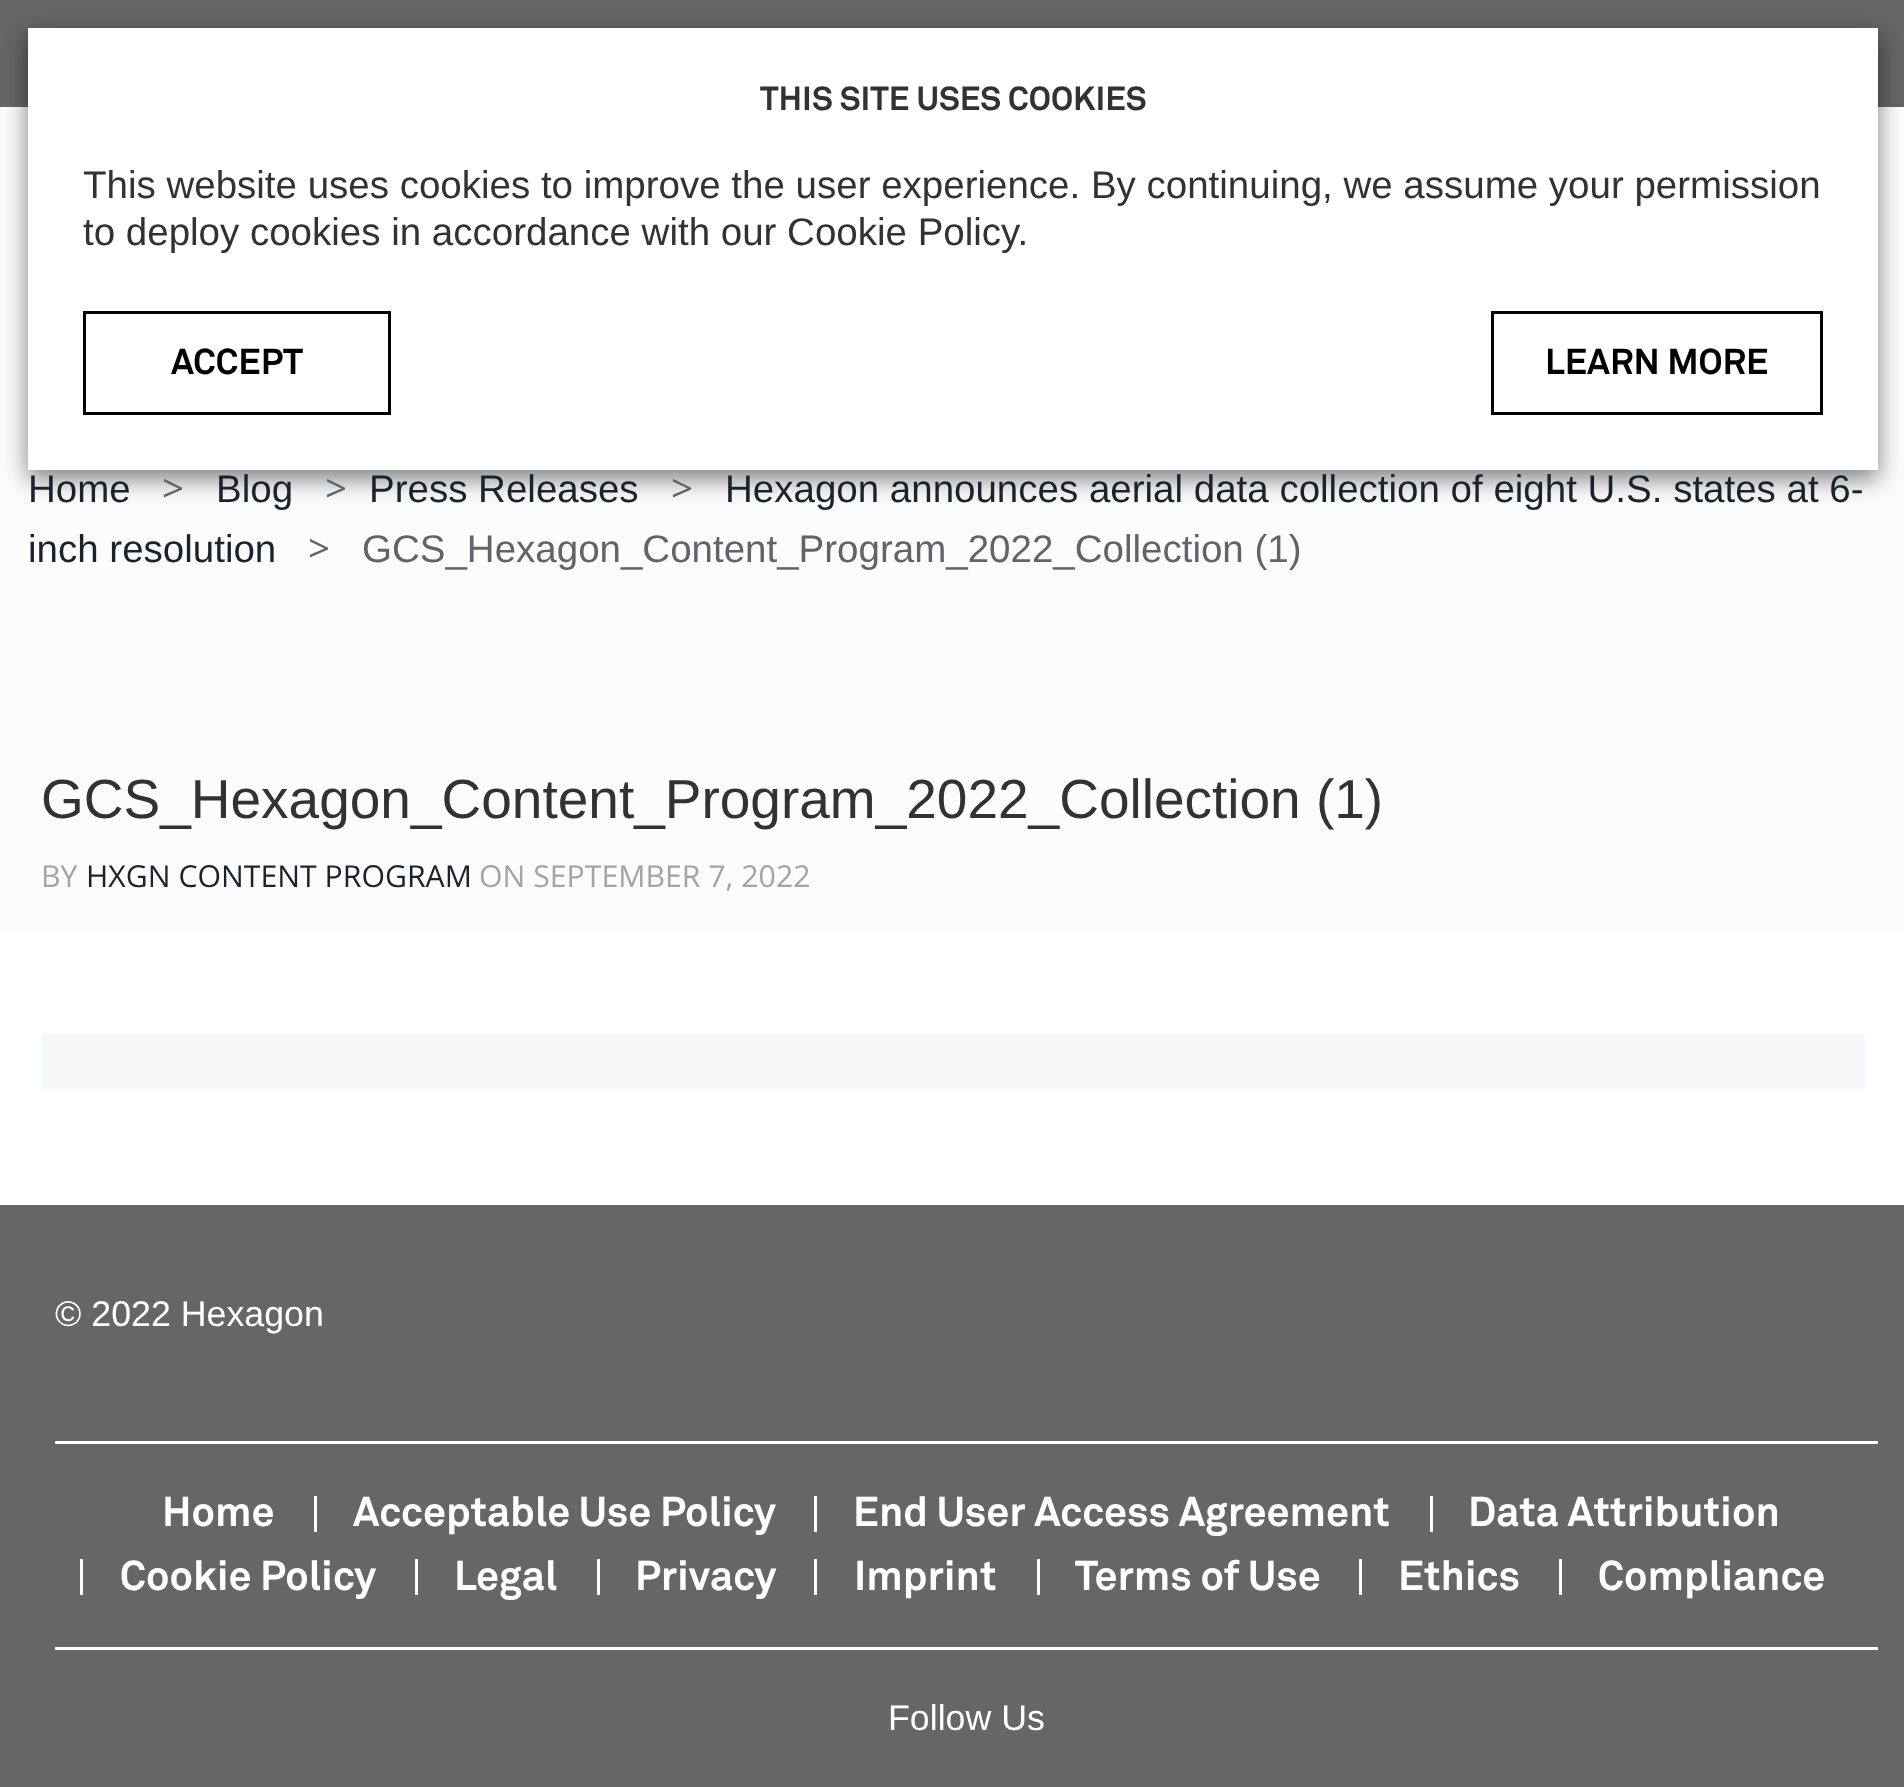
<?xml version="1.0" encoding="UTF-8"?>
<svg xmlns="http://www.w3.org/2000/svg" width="1904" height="1787">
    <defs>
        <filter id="blur1" x="-50%" y="-200%" width="200%" height="500%"><feGaussianBlur stdDeviation="12.5"/></filter>
    </defs>
    <rect width="100%" height="100%" fill="#FFFFFF"/>
    <rect x="0" y="107" width="1904" height="823" fill="#FCFCFC"/>
    <rect x="0" y="0" width="1904" height="107" fill="#656565"/>
    <rect x="28" y="36" width="1850" height="443" fill="#000000" fill-opacity="0.5" filter="url(#blur1)"/>
    <rect x="28" y="28" width="1850" height="442" fill="#FFFFFF"/>
    <text x="760" y="110" font-family="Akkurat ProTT" font-size="33" font-weight="700" fill="#323232">THIS SITE USES COOKIES</text>
    <text font-family="Liberation Sans" font-size="38.5" fill="#323232">
        <tspan x="83" y="198">This website uses cookies to improve the user experience. By continuing, we assume your permission</tspan>
        <tspan x="83" y="245">to deploy cookies in accordance with our Cookie Policy.</tspan>
    </text>
    <rect x="84.5" y="312.5" width="305" height="101" fill="none" stroke="#000000" stroke-width="3"/>
    <text x="171" y="374" font-family="Akkurat ProTT" font-size="35.75" font-weight="700" fill="#000000">ACCEPT</text>
    <rect x="1492.5" y="312.5" width="329" height="101" fill="none" stroke="#000000" stroke-width="3"/>
    <text x="1545" y="374" font-family="Akkurat ProTT" font-size="35.75" font-weight="700" fill="#000000">LEARN MORE</text>
    <text x="28" y="502" font-family="Liberation Sans" font-size="38.5" fill="#19232D">Home</text>
    <text x="162" y="502" font-family="Open Sans" font-size="38.5" fill="#5F6468">&gt;</text>
    <text x="216" y="502" font-family="Liberation Sans" font-size="38.5" fill="#19232D">Blog</text>
    <text x="325" y="502" font-family="Open Sans" font-size="38.5" fill="#5F6468">&gt;</text>
    <text x="369" y="502" font-family="Liberation Sans" font-size="38.5" fill="#19232D">Press Releases</text>
    <text x="671" y="502" font-family="Open Sans" font-size="38.5" fill="#5F6468">&gt;</text>
    <text x="725" y="502" font-family="Liberation Sans" font-size="38.5" fill="#19232D">Hexagon announces aerial data collection of eight U.S. states at 6-</text>
    <text x="28" y="562" font-family="Liberation Sans" font-size="38.5" fill="#19232D">inch resolution</text>
    <text x="308" y="562" font-family="Open Sans" font-size="38.5" fill="#5F6468">&gt;</text>
    <text x="362" y="562" font-family="Liberation Sans" font-size="38.5" fill="#5F6468">GCS_Hexagon_Content_Program_2022_Collection (1)</text>
    <text x="41" y="818" font-family="Liberation Sans" font-size="55" fill="#323232">GCS_Hexagon_Content_Program_2022_Collection (1)</text>
    <text x="41" y="887" font-family="Open Sans" font-size="30.25" fill="#A4A4A4">BY</text>
    <text x="86" y="887" font-family="Open Sans" font-size="30.25" fill="#19232D">HXGN CONTENT PROGRAM</text>
    <text x="479" y="887" font-family="Open Sans" font-size="30.25" fill="#A4A4A4">ON SEPTEMBER 7, 2022</text>
    <rect x="41" y="1034" width="1824" height="55" fill="#F5F7F8"/>
    <rect x="0" y="1205" width="1904" height="582" fill="#666666"/>
    <text x="55" y="1326" font-family="Liberation Sans" font-size="35.75" fill="#FFFFFF">© 2022 Hexagon</text>
    <rect x="55" y="1441" width="1823" height="3" fill="#FFFFFF"/>
    <text x="162" y="1526" font-family="Akkurat ProTT" font-size="41.25" font-weight="700" fill="#FFFFFF">Home</text>
    <rect x="314" y="1496" width="3" height="36" fill="#FFFFFF"/>
    <text x="353" y="1526" font-family="Akkurat ProTT" font-size="41.25" font-weight="700" fill="#FFFFFF">Acceptable Use Policy</text>
    <rect x="814" y="1496" width="3" height="36" fill="#FFFFFF"/>
    <text x="853" y="1526" font-family="Akkurat ProTT" font-size="41.25" font-weight="700" fill="#FFFFFF">End User Access Agreement</text>
    <rect x="1430" y="1496" width="3" height="36" fill="#FFFFFF"/>
    <text x="1468" y="1526" font-family="Akkurat ProTT" font-size="41.25" font-weight="700" fill="#FFFFFF">Data Attribution</text>
    <rect x="80" y="1559" width="3" height="36" fill="#FFFFFF"/>
    <text x="120" y="1590" font-family="Akkurat ProTT" font-size="41.25" font-weight="700" fill="#FFFFFF">Cookie Policy</text>
    <rect x="415" y="1559" width="3" height="36" fill="#FFFFFF"/>
    <text x="454" y="1590" font-family="Akkurat ProTT" font-size="41.25" font-weight="700" fill="#FFFFFF">Legal</text>
    <rect x="597" y="1559" width="3" height="36" fill="#FFFFFF"/>
    <text x="635" y="1590" font-family="Akkurat ProTT" font-size="41.25" font-weight="700" fill="#FFFFFF">Privacy</text>
    <rect x="814" y="1559" width="3" height="36" fill="#FFFFFF"/>
    <text x="854" y="1590" font-family="Akkurat ProTT" font-size="41.25" font-weight="700" fill="#FFFFFF">Imprint</text>
    <rect x="1037" y="1559" width="3" height="36" fill="#FFFFFF"/>
    <text x="1075" y="1590" font-family="Akkurat ProTT" font-size="41.25" font-weight="700" fill="#FFFFFF">Terms of Use</text>
    <rect x="1359" y="1559" width="3" height="36" fill="#FFFFFF"/>
    <text x="1398" y="1590" font-family="Akkurat ProTT" font-size="41.25" font-weight="700" fill="#FFFFFF">Ethics</text>
    <rect x="1559" y="1559" width="3" height="36" fill="#FFFFFF"/>
    <text x="1598" y="1590" font-family="Akkurat ProTT" font-size="41.25" font-weight="700" fill="#FFFFFF">Compliance</text>
    <rect x="55" y="1647" width="1823" height="3" fill="#FFFFFF"/>
    <text x="888" y="1730" font-family="Liberation Sans" font-size="35.75" fill="#FFFFFF">Follow Us</text>
</svg>
